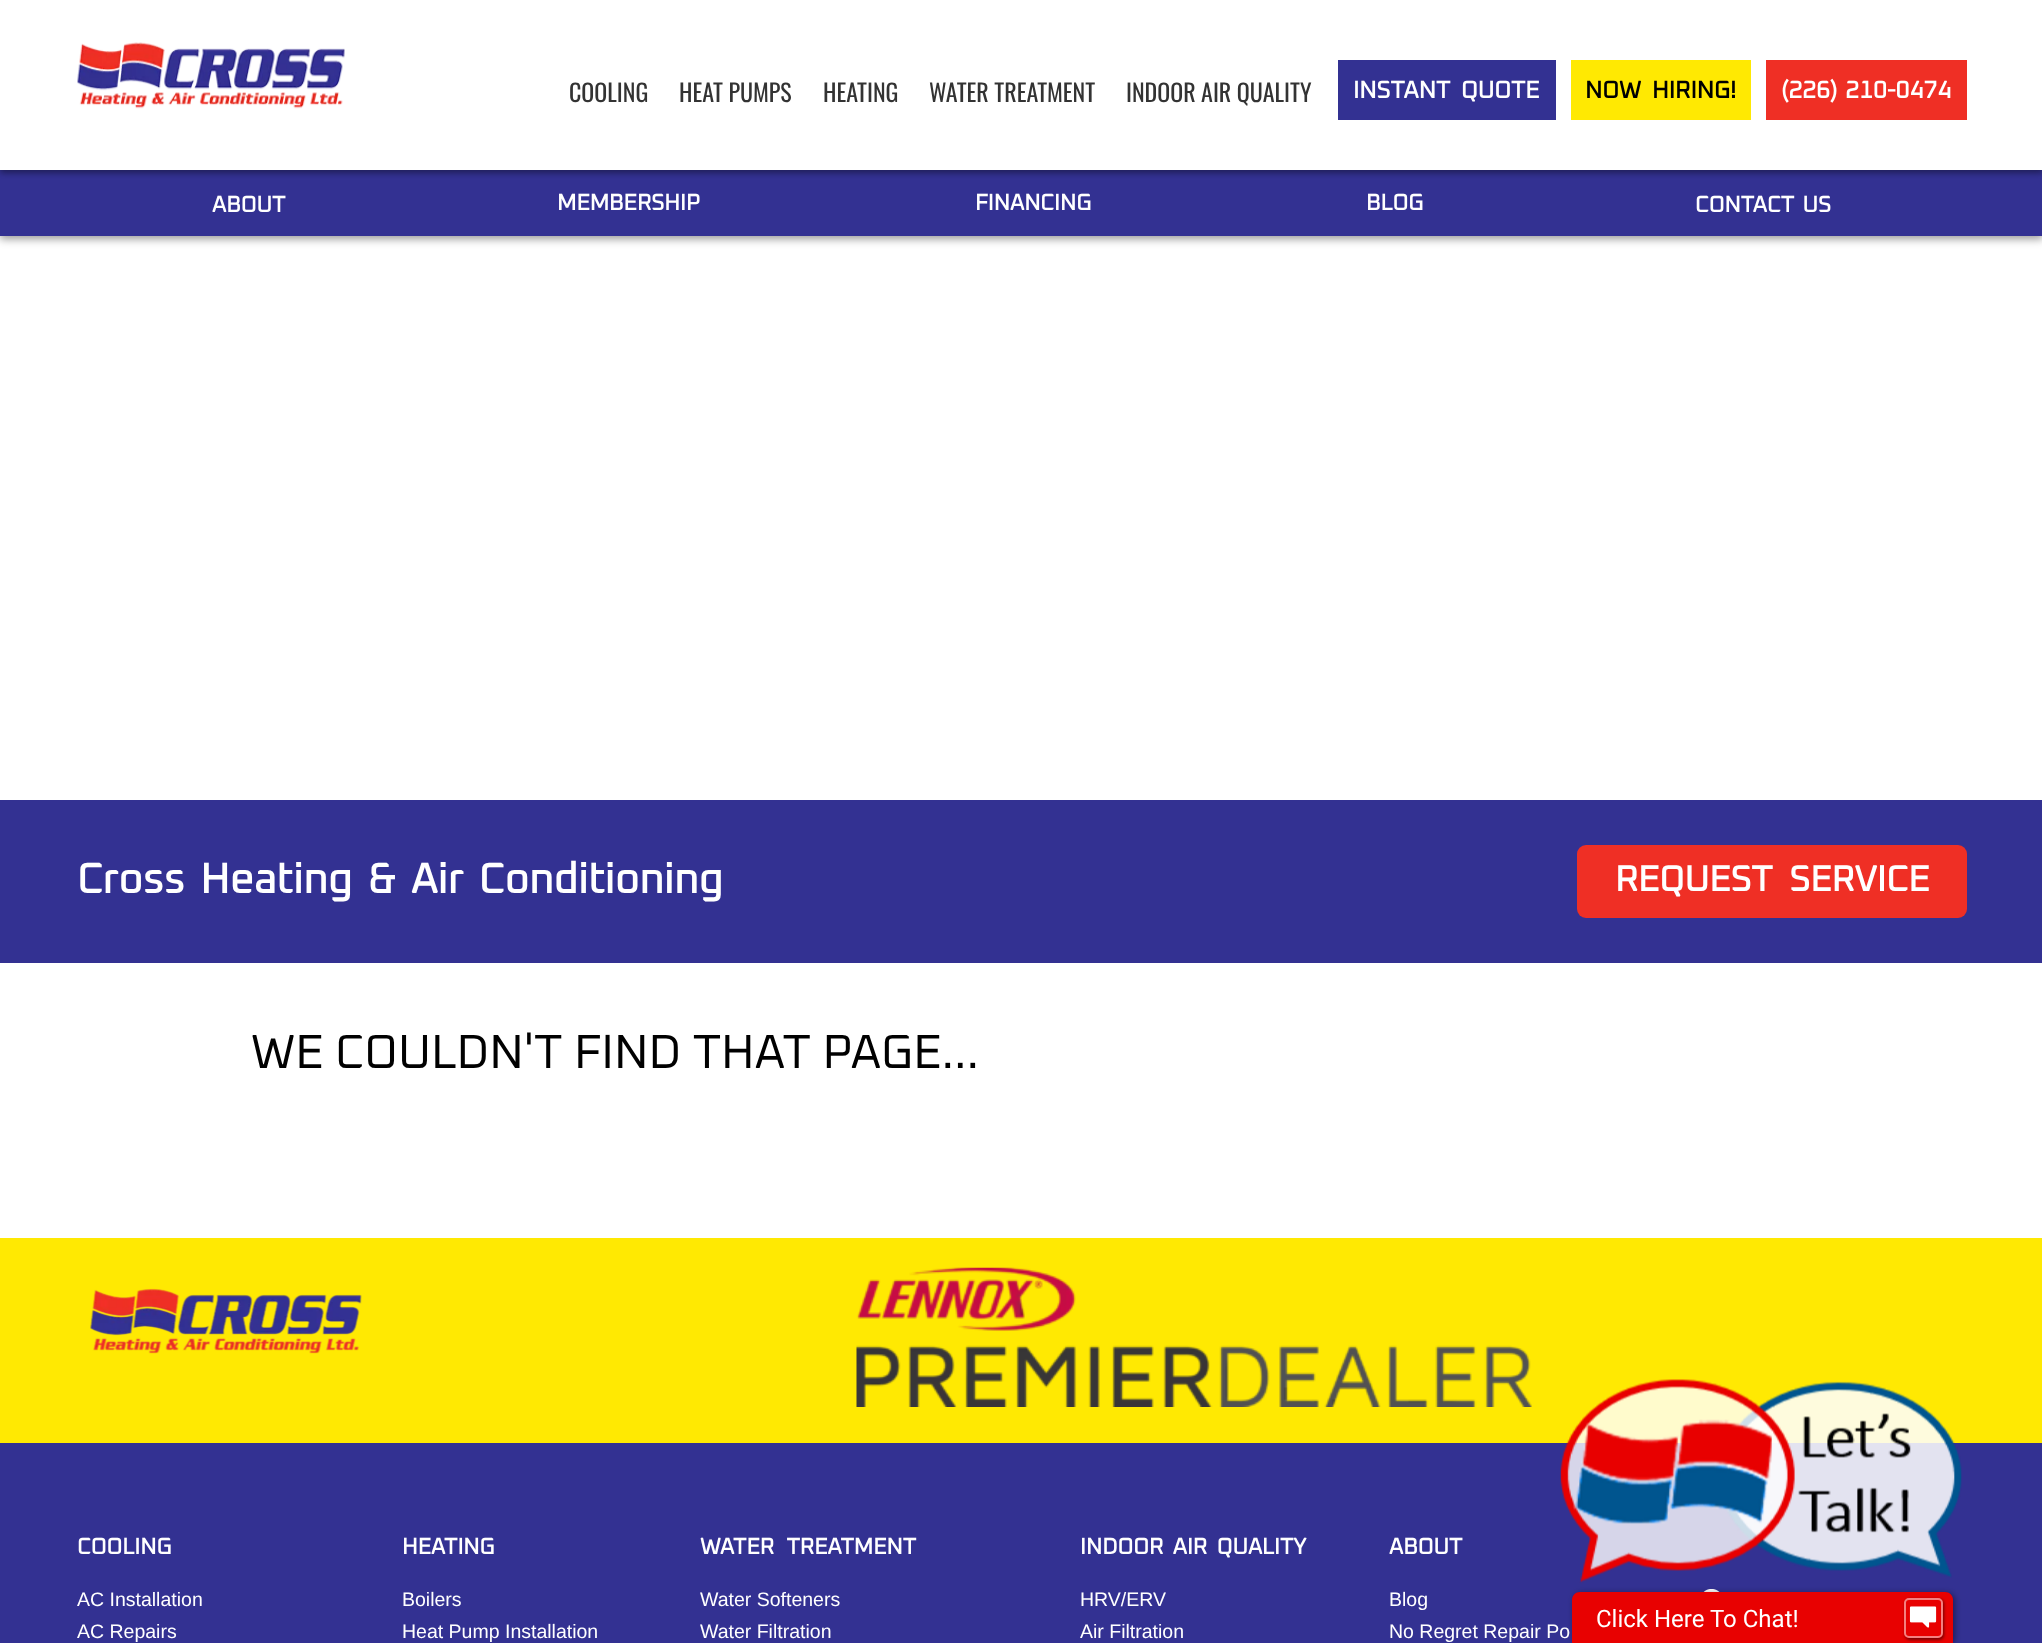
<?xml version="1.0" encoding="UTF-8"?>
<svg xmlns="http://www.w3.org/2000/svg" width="2042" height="1643">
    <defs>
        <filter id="blur1" x="-50%" y="-200%" width="200%" height="500%"><feGaussianBlur stdDeviation="4.5"/></filter>
        <filter id="blur2" x="-50%" y="-200%" width="200%" height="500%"><feGaussianBlur stdDeviation="3"/></filter>
        <clipPath id="clip1"><path d="M 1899 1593 H 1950 V 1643 H 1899 Z M 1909 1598 H 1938 C 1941 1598 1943 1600 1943 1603 V 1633 C 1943 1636 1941 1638 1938 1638 H 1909 C 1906 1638 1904 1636 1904 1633 V 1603 C 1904 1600 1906 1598 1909 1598 Z" clip-rule="evenodd"/></clipPath>
        <filter id="blur3" x="-50%" y="-200%" width="200%" height="500%"><feGaussianBlur stdDeviation="1.5"/></filter>
    </defs>
    <rect width="100%" height="100%" fill="#FFFFFF"/>
    <rect x="0" y="173" width="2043" height="66" fill="#000000" fill-opacity="0.4" filter="url(#blur1)"/>
    <rect x="0" y="170" width="2042" height="66" fill="#333192"/>
    <rect x="0" y="3" width="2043" height="170" fill="#000000" fill-opacity="0.4" filter="url(#blur2)"/>
    <rect x="0" y="0" width="2042" height="170" fill="#FFFFFF"/>
    <image x="77" y="42" width="268" height="67" href="img_01.png"/>
    <text x="569" y="102" font-family="Oswald" font-size="24" fill="#333333">COOLING</text>
    <text x="679" y="102" font-family="Oswald" font-size="24" fill="#333333">HEAT PUMPS</text>
    <text x="823" y="102" font-family="Oswald" font-size="24" fill="#333333">HEATING</text>
    <text x="929" y="102" font-family="Oswald" font-size="24" fill="#333333">WATER TREATMENT</text>
    <text x="1126" y="102" font-family="Oswald" font-size="24" fill="#333333">INDOOR AIR QUALITY</text>
    <rect x="1338" y="60" width="218" height="60" fill="#333192"/>
    <text x="1353" y="98" word-spacing="5" font-family="Oxanium" font-size="24" font-weight="700" fill="#FFFFFF">INSTANT QUOTE</text>
    <rect x="1571" y="60" width="180" height="60" fill="#FFE902"/>
    <text x="1585" y="98" word-spacing="5" font-family="Oxanium" font-size="24" font-weight="700" fill="#000000">NOW HIRING!</text>
    <rect x="1766" y="60" width="201" height="60" fill="#EF2F25"/>
    <text x="1781" y="98" word-spacing="2" font-family="Oxanium" font-size="24" font-weight="700" fill="#FFFFFF">(226) 210-0474</text>
    <text x="212" y="212" font-family="Oxanium" font-size="22.5" font-weight="700" fill="#FFFFFF">ABOUT</text>
    <text x="557" y="210" font-family="Oxanium" font-size="22.5" font-weight="700" fill="#FFFFFF">MEMBERSHIP</text>
    <text x="975" y="210" font-family="Oxanium" font-size="22.5" font-weight="700" fill="#FFFFFF">FINANCING</text>
    <text x="1366" y="210" font-family="Oxanium" font-size="22.5" font-weight="700" fill="#FFFFFF">BLOG</text>
    <text x="1695" y="212" word-spacing="3" font-family="Oxanium" font-size="22.5" font-weight="700" fill="#FFFFFF">CONTACT US</text>
    <rect x="0" y="800" width="2042" height="163" fill="#333192"/>
    <text x="77" y="893" word-spacing="5.5" font-family="Oxanium" font-size="42" font-weight="700" fill="#FFFFFF">Cross Heating &amp; Air Conditioning</text>
    <rect x="1577" y="845" width="390" height="73" rx="9" fill="#EF2F25"/>
    <text x="1615" y="891" word-spacing="8" font-family="Oxanium" font-size="36" font-weight="700" fill="#FFFFFF">REQUEST SERVICE</text>
    <text x="251" y="1068" font-family="Oxanium" font-size="48" fill="#000000">WE COULDN'T FIND THAT PAGE...</text>
    <rect x="0" y="1443" width="2042" height="200" fill="#333192"/>
    <rect x="0" y="1238" width="2042" height="205" fill="#FFE902"/>
    <image x="90" y="1288" width="272" height="66" href="img_02.png"/>
    <image x="856" y="1267" width="676" height="140" href="img_03.png"/>
    <text x="77" y="1554" font-family="Oxanium" font-size="22.5" font-weight="700" fill="#FFFFFF">COOLING</text>
    <text font-family="Liberation Sans" font-size="19.5" fill="#FFFFFF">
        <tspan x="77" y="1606">AC Installation</tspan>
        <tspan x="77" y="1638">AC Repairs</tspan>
    </text>
    <text x="402" y="1554" font-family="Oxanium" font-size="22.5" font-weight="700" fill="#FFFFFF">HEATING</text>
    <text font-family="Liberation Sans" font-size="19.5" fill="#FFFFFF">
        <tspan x="402" y="1606">Boilers</tspan>
        <tspan x="402" y="1638">Heat Pump Installation</tspan>
    </text>
    <text x="700" y="1554" word-spacing="7" font-family="Oxanium" font-size="22.5" font-weight="700" fill="#FFFFFF">WATER TREATMENT</text>
    <text font-family="Liberation Sans" font-size="19.5" fill="#FFFFFF">
        <tspan x="700" y="1606">Water Softeners</tspan>
        <tspan x="700" y="1638">Water Filtration</tspan>
    </text>
    <text x="1080" y="1554" word-spacing="4" font-family="Oxanium" font-size="22.5" font-weight="700" fill="#FFFFFF">INDOOR AIR QUALITY</text>
    <text font-family="Liberation Sans" font-size="19.5" fill="#FFFFFF">
        <tspan x="1080" y="1606">HRV/ERV</tspan>
        <tspan x="1080" y="1638">Air Filtration</tspan>
    </text>
    <text x="1389" y="1554" font-family="Oxanium" font-size="22.5" font-weight="700" fill="#FFFFFF">ABOUT</text>
    <text font-family="Liberation Sans" font-size="19.5" fill="#FFFFFF">
        <tspan x="1389" y="1606">Blog</tspan>
        <tspan x="1389" y="1638">No Regret Repair Po</tspan>
    </text>
    <image x="1703" y="1589" width="17" height="3" href="img_04.png"/>
    <rect x="1574" y="1593" width="381" height="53" rx="8" fill="#000000" fill-opacity="0.4" filter="url(#blur2)"/>
    <image x="1560" y="1379" width="402" height="204" href="img_05.png"/>
    <path d="M 1580 1592 H 1945 C 1949.5 1592 1953 1595.5 1953 1600 V 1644 H 1572 V 1600 C 1572 1595.5 1575.5 1592 1580 1592 Z" fill="#E80101"/>
    <text x="1596" y="1627" font-family="Roboto" font-size="24" fill="#FFFFFF">Click Here To Chat!</text>
    <g clip-path="url(#clip1)">
        <rect x="1905" y="1599" width="39" height="41" rx="5" fill="#000000" fill-opacity="0.5" filter="url(#blur3)"/>
    </g>
    <rect x="1905" y="1599" width="37" height="38" rx="4" fill="none" stroke="#FFFFFF" stroke-opacity="0.5" stroke-width="2"/>
    <image x="1909" y="1606" width="28" height="22" href="img_06.png"/>
</svg>
